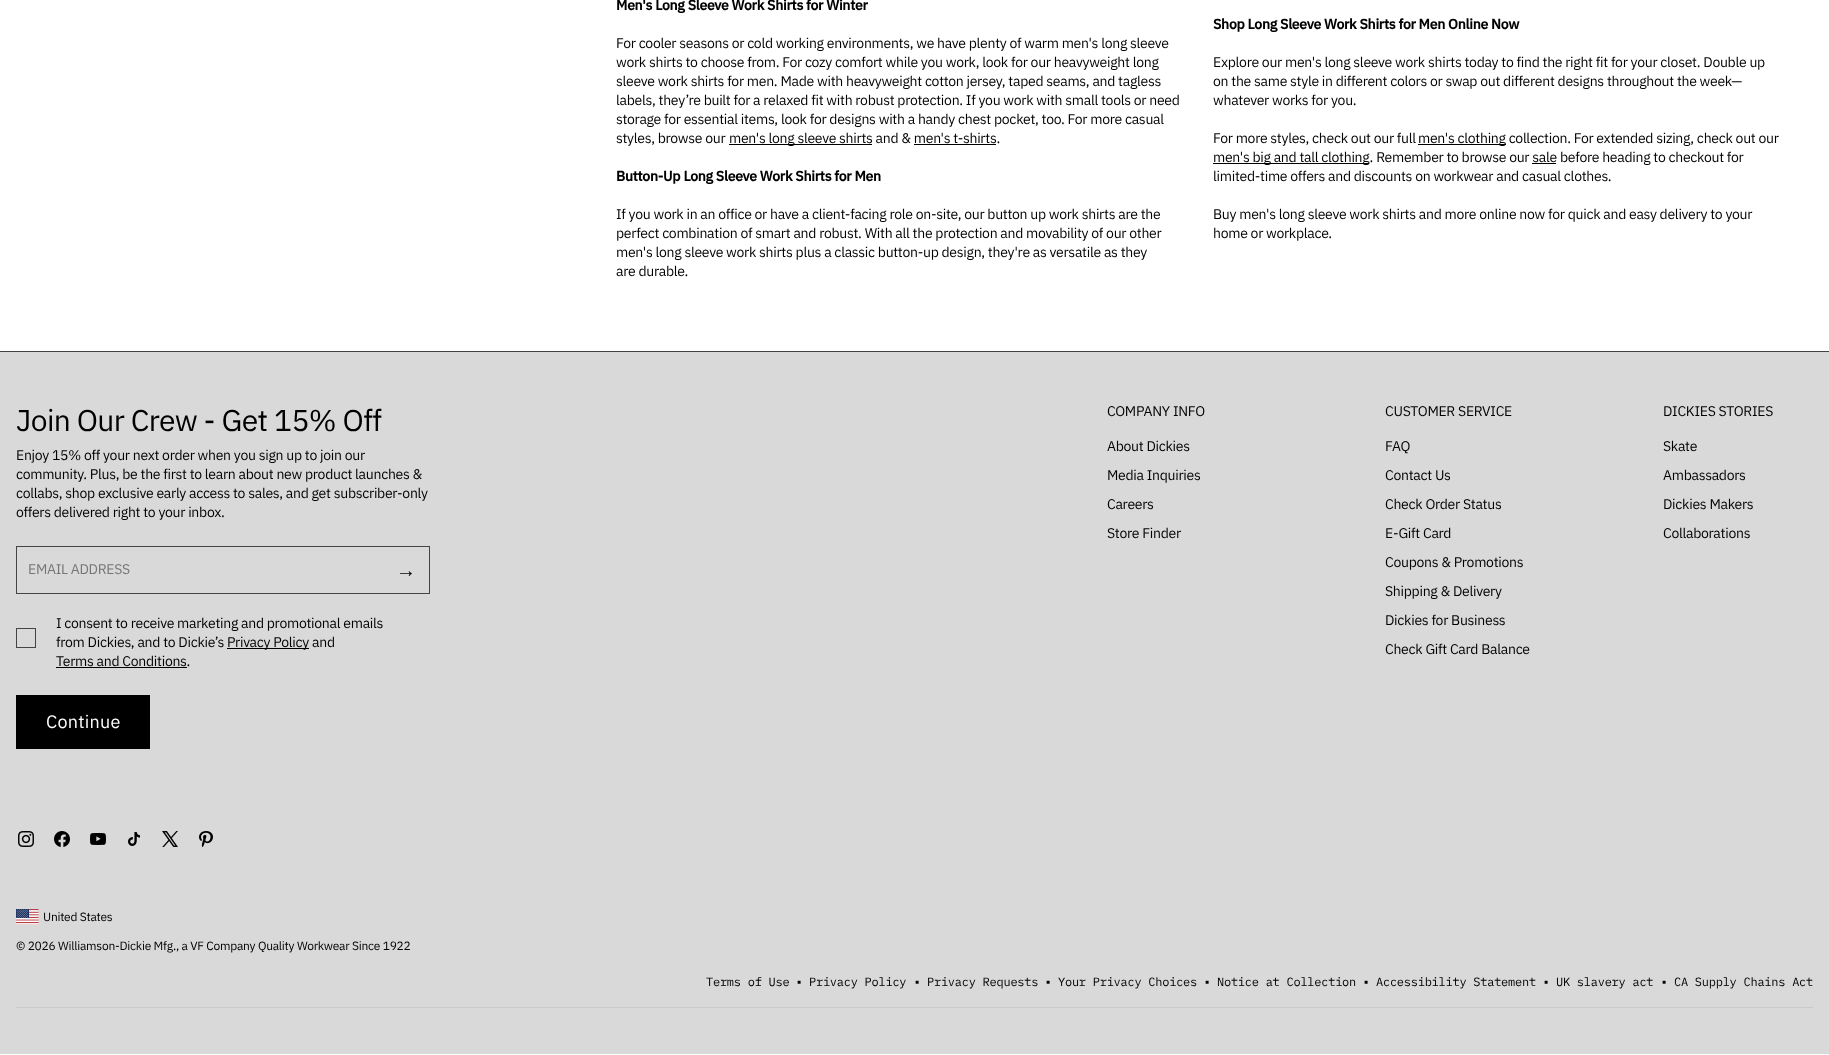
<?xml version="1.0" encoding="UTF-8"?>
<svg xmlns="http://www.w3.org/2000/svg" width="1829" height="1055">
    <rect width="100%" height="100%" fill="#FFFFFF"/>
    <text x="616" y="10" font-family="IBM Plex Sans" font-size="14" font-weight="700" letter-spacing="-0.28" fill="#000000">Men's Long Sleeve Work Shirts for Winter</text>
    <text font-family="IBM Plex Sans" font-size="14" letter-spacing="-0.28" fill="#000000">
        <tspan x="616" y="48">For cooler seasons or cold working environments, we have plenty of warm men's long sleeve</tspan>
        <tspan x="616" y="67">work shirts to choose from. For cozy comfort while you work, look for our heavyweight long</tspan>
        <tspan x="616" y="86">sleeve work shirts for men. Made with heavyweight cotton jersey, taped seams, and tagless</tspan>
        <tspan x="616" y="105">labels, they’re built for a relaxed fit with robust protection. If you work with small tools or need</tspan>
        <tspan x="616" y="124">storage for essential items, look for designs with a handy chest pocket, too. For more casual</tspan>
        <tspan x="616" y="143">styles, browse our</tspan>
    </text>
    <rect x="729" y="144" width="143" height="1" fill="#000000"/>
    <text x="729" y="143" font-family="IBM Plex Sans" font-size="14" letter-spacing="-0.28" fill="#000000">men's long sleeve shirts and &amp; men's t-shirts.</text>
    <rect x="914" y="144" width="82" height="1" fill="#000000"/>
    <text x="616" y="181" font-family="IBM Plex Sans" font-size="14" font-weight="700" letter-spacing="-0.28" fill="#000000">Button-Up Long Sleeve Work Shirts for Men</text>
    <text font-family="IBM Plex Sans" font-size="14" letter-spacing="-0.28" fill="#000000">
        <tspan x="616" y="219">If you work in an office or have a client-facing role on-site, our button up work shirts are the</tspan>
        <tspan x="616" y="238">perfect combination of smart and robust. With all the protection and movability of our other</tspan>
        <tspan x="616" y="257">men's long sleeve work shirts plus a classic button-up design, they're as versatile as they</tspan>
        <tspan x="616" y="276">are durable.</tspan>
    </text>
    <text x="1213" y="29" font-family="IBM Plex Sans" font-size="14" font-weight="700" letter-spacing="-0.28" fill="#000000">Shop Long Sleeve Work Shirts for Men Online Now</text>
    <text font-family="IBM Plex Sans" font-size="14" letter-spacing="-0.28" fill="#000000">
        <tspan x="1213" y="67">Explore our men's long sleeve work shirts today to find the right fit for your closet. Double up</tspan>
        <tspan x="1213" y="86">on the same style in different colors or swap out different designs throughout the week—</tspan>
        <tspan x="1213" y="105">whatever works for you.</tspan>
    </text>
    <text x="1213" y="143" font-family="IBM Plex Sans" font-size="14" letter-spacing="-0.28" fill="#000000">For more styles, check out our full</text>
    <rect x="1418" y="144" width="88" height="1" fill="#000000"/>
    <text x="1418" y="143" font-family="IBM Plex Sans" font-size="14" letter-spacing="-0.28" fill="#000000">men's clothing collection. For extended sizing, check out our</text>
    <rect x="1213" y="163" width="156" height="1" fill="#000000"/>
    <text x="1213" y="162" font-family="IBM Plex Sans" font-size="14" letter-spacing="-0.28" fill="#000000">men's big and tall clothing. Remember to browse our sale before heading to checkout for</text>
    <rect x="1532" y="163" width="24" height="1" fill="#000000"/>
    <text x="1213" y="181" font-family="IBM Plex Sans" font-size="14" letter-spacing="-0.28" fill="#000000">limited-time offers and discounts on workwear and casual clothes.</text>
    <text font-family="IBM Plex Sans" font-size="14" letter-spacing="-0.28" fill="#000000">
        <tspan x="1213" y="219">Buy men's long sleeve work shirts and more online now for quick and easy delivery to your</tspan>
        <tspan x="1213" y="238">home or workplace.</tspan>
    </text>
    <rect x="0" y="352" width="1829" height="702" fill="#D9D9D9"/>
    <rect x="0" y="351" width="1829" height="1" fill="#444444"/>
    <text x="16" y="431" font-family="IBM Plex Sans" font-size="30" letter-spacing="-0.6" fill="#000000">Join Our Crew - Get 15% Off</text>
    <text font-family="IBM Plex Sans" font-size="14" letter-spacing="-0.28" fill="#000000">
        <tspan x="16" y="460">Enjoy 15% off your next order when you sign up to join our</tspan>
        <tspan x="16" y="479">community. Plus, be the first to learn about new product launches &amp;</tspan>
        <tspan x="16" y="498">collabs, shop exclusive early access to sales, and get subscriber-only</tspan>
        <tspan x="16" y="517">offers delivered right to your inbox.</tspan>
    </text>
    <rect x="16.5" y="546.5" width="413" height="47" fill="none" stroke="#444444"/>
    <text x="28" y="574" font-family="IBM Plex Sans" font-size="14" letter-spacing="-0.28" fill="#757575">EMAIL ADDRESS</text>
    <text x="396" y="577" font-family="Liberation Sans" font-size="20" letter-spacing="-0.28" fill="#000000">→</text>
    <rect x="16.5" y="628.5" width="19" height="19" fill="none" stroke="#444444"/>
    <text font-family="IBM Plex Sans" font-size="14" letter-spacing="-0.28" fill="#000000">
        <tspan x="56" y="628">I consent to receive marketing and promotional emails</tspan>
        <tspan x="56" y="647">from Dickies, and to Dickie’s</tspan>
    </text>
    <rect x="227" y="648" width="82" height="1" fill="#000000"/>
    <text x="227" y="647" font-family="IBM Plex Sans" font-size="14" letter-spacing="-0.28" fill="#000000">Privacy Policy and</text>
    <text x="56" y="666" font-family="IBM Plex Sans" font-size="14" letter-spacing="-0.28" fill="#000000">Terms and Conditions.</text>
    <rect x="56" y="667" width="131" height="1" fill="#000000"/>
    <rect x="16" y="695" width="134" height="54" fill="#000000"/>
    <text x="46" y="728" font-family="IBM Plex Sans" font-size="18" letter-spacing="0.25" fill="#FFFFFF">Continue</text>
    <image x="18" y="831" width="16" height="16" href="img_01.png"/>
    <image x="54" y="831" width="16" height="16" href="img_02.png"/>
    <image x="90" y="833" width="16" height="12" href="img_03.png"/>
    <image x="128" y="832" width="12" height="14" href="img_04.png"/>
    <image x="162" y="831" width="16" height="16" href="img_05.png"/>
    <image x="199" y="831" width="14" height="16" href="img_06.png"/>
    <text x="1107" y="416" font-family="IBM Plex Sans" font-size="14" letter-spacing="-0.28" fill="#000000">COMPANY INFO</text>
    <text x="1107" y="451" font-family="IBM Plex Sans" font-size="14" letter-spacing="-0.28" fill="#000000">About Dickies</text>
    <text x="1107" y="480" font-family="IBM Plex Sans" font-size="14" letter-spacing="-0.28" fill="#000000">Media Inquiries</text>
    <text x="1107" y="509" font-family="IBM Plex Sans" font-size="14" letter-spacing="-0.28" fill="#000000">Careers</text>
    <text x="1107" y="538" font-family="IBM Plex Sans" font-size="14" letter-spacing="-0.28" fill="#000000">Store Finder</text>
    <text x="1385" y="416" font-family="IBM Plex Sans" font-size="14" letter-spacing="-0.28" fill="#000000">CUSTOMER SERVICE</text>
    <text x="1385" y="451" font-family="IBM Plex Sans" font-size="14" letter-spacing="-0.28" fill="#000000">FAQ</text>
    <text x="1385" y="480" font-family="IBM Plex Sans" font-size="14" letter-spacing="-0.28" fill="#000000">Contact Us</text>
    <text x="1385" y="509" font-family="IBM Plex Sans" font-size="14" letter-spacing="-0.28" fill="#000000">Check Order Status</text>
    <text x="1385" y="538" font-family="IBM Plex Sans" font-size="14" letter-spacing="-0.28" fill="#000000">E-Gift Card</text>
    <text x="1385" y="567" font-family="IBM Plex Sans" font-size="14" letter-spacing="-0.28" fill="#000000">Coupons &amp; Promotions</text>
    <text x="1385" y="596" font-family="IBM Plex Sans" font-size="14" letter-spacing="-0.28" fill="#000000">Shipping &amp; Delivery</text>
    <text x="1385" y="625" font-family="IBM Plex Sans" font-size="14" letter-spacing="-0.28" fill="#000000">Dickies for Business</text>
    <text x="1385" y="654" font-family="IBM Plex Sans" font-size="14" letter-spacing="-0.28" fill="#000000">Check Gift Card Balance</text>
    <text x="1663" y="416" font-family="IBM Plex Sans" font-size="14" letter-spacing="-0.28" fill="#000000">DICKIES STORIES</text>
    <text x="1663" y="451" font-family="IBM Plex Sans" font-size="14" letter-spacing="-0.28" fill="#000000">Skate</text>
    <text x="1663" y="480" font-family="IBM Plex Sans" font-size="14" letter-spacing="-0.28" fill="#000000">Ambassadors</text>
    <text x="1663" y="509" font-family="IBM Plex Sans" font-size="14" letter-spacing="-0.28" fill="#000000">Dickies Makers</text>
    <text x="1663" y="538" font-family="IBM Plex Sans" font-size="14" letter-spacing="-0.28" fill="#000000">Collaborations</text>
    <image x="16" y="909" width="23" height="16" href="img_07.png"/>
    <text x="43" y="921" font-family="IBM Plex Sans" font-size="12" letter-spacing="-0.25" fill="#000000">United States</text>
    <text x="16" y="950" font-family="IBM Plex Sans" font-size="12" letter-spacing="-0.25" fill="#000000">© 2026 Williamson-Dickie Mfg., a VF Company Quality Workwear Since 1922</text>
    <text x="706" y="986" font-family="IBM Plex Mono" font-size="12" letter-spacing="-0.25" fill="#000000">Terms of Use</text>
    <text x="797" y="986" font-family="Liberation Sans" font-size="12" letter-spacing="-0.28" fill="#000000">▪</text>
    <text x="809" y="986" font-family="IBM Plex Mono" font-size="12" letter-spacing="-0.25" fill="#000000">Privacy Policy</text>
    <text x="915" y="986" font-family="Liberation Sans" font-size="12" letter-spacing="-0.28" fill="#000000">▪</text>
    <text x="927" y="986" font-family="IBM Plex Mono" font-size="12" letter-spacing="-0.25" fill="#000000">Privacy Requests</text>
    <text x="1046" y="986" font-family="Liberation Sans" font-size="12" letter-spacing="-0.28" fill="#000000">▪</text>
    <text x="1058" y="986" font-family="IBM Plex Mono" font-size="12" letter-spacing="-0.25" fill="#000000">Your Privacy Choices</text>
    <text x="1205" y="986" font-family="Liberation Sans" font-size="12" letter-spacing="-0.28" fill="#000000">▪</text>
    <text x="1217" y="986" font-family="IBM Plex Mono" font-size="12" letter-spacing="-0.25" fill="#000000">Notice at Collection</text>
    <text x="1364" y="986" font-family="Liberation Sans" font-size="12" letter-spacing="-0.28" fill="#000000">▪</text>
    <text x="1376" y="986" font-family="IBM Plex Mono" font-size="12" letter-spacing="-0.25" fill="#000000">Accessibility Statement</text>
    <text x="1544" y="986" font-family="Liberation Sans" font-size="12" letter-spacing="-0.28" fill="#000000">▪</text>
    <text x="1556" y="986" font-family="IBM Plex Mono" font-size="12" letter-spacing="-0.25" fill="#000000">UK slavery act</text>
    <text x="1662" y="986" font-family="Liberation Sans" font-size="12" letter-spacing="-0.28" fill="#000000">▪</text>
    <text x="1674" y="986" font-family="IBM Plex Mono" font-size="12" letter-spacing="-0.25" fill="#000000">CA Supply Chains Act</text>
    <rect x="16" y="1007" width="1797" height="1" fill="#C9C9C9"/>
</svg>
